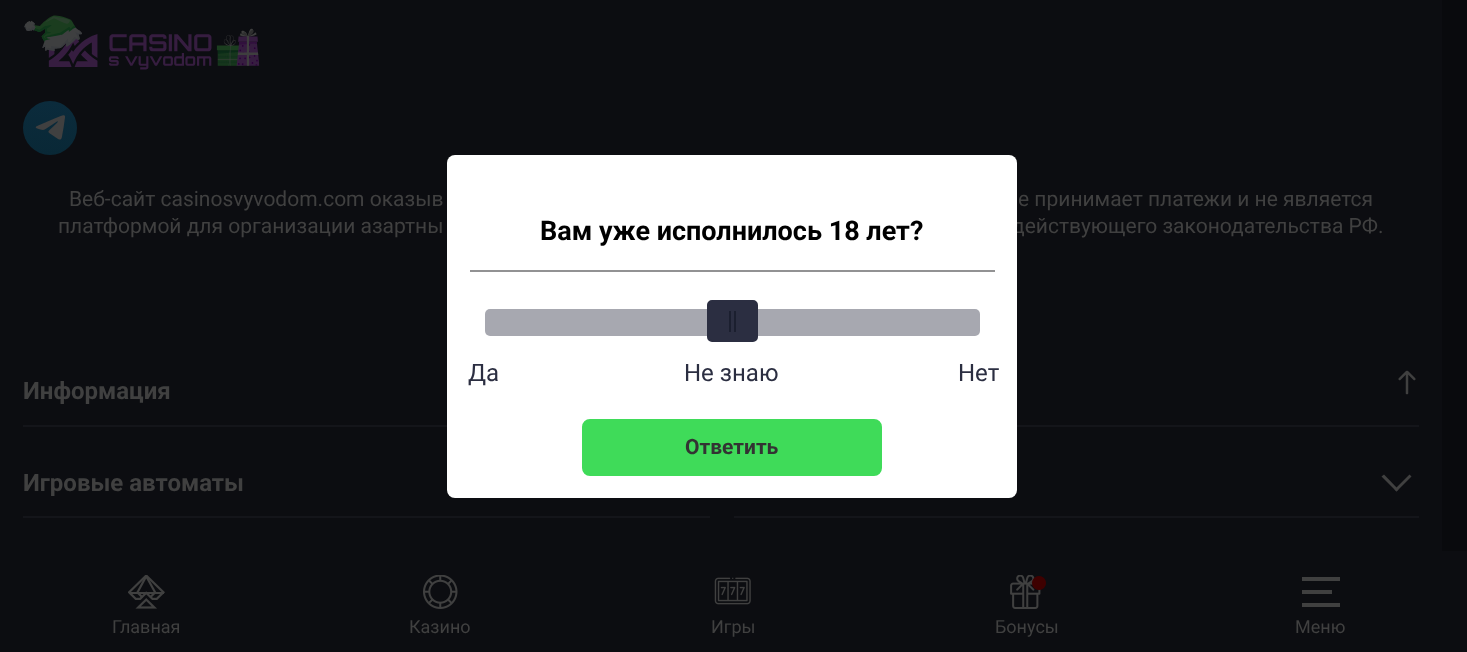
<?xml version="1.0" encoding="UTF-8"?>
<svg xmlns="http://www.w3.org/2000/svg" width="1467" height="652">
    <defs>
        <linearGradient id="g1" gradientUnits="userSpaceOnUse" x1="50" y1="101" x2="50" y2="155"><stop offset="0" stop-color="#0B2B3C"/><stop offset="0.99" stop-color="#092836"/></linearGradient>
    </defs>
    <rect width="100%" height="100%" fill="#090A0D"/>
    <rect x="0" y="0" width="1442" height="551" fill="#0C0D11"/>
    <image x="24" y="15" width="236" height="55" href="img_01.png"/>
    <circle cx="50" cy="128" r="27" fill="url(#g1)"/>
    <image x="35" y="115" width="30" height="25" href="img_02.png"/>
    <text x="69" y="206" font-family="Roboto" font-size="21" fill="#404040">Веб-сайт casinosvyvodom.com оказыв</text>
    <text x="1018" y="206" font-family="Roboto" font-size="21" fill="#404040">е принимает платежи и не является</text>
    <text x="58" y="233" font-family="Roboto" font-size="21" fill="#404040">платформой для организации азартны</text>
    <text x="1012" y="233" font-family="Roboto" font-size="21" fill="#404040">действующего законодательства РФ.</text>
    <rect x="23" y="425" width="424" height="2" fill="#14151A"/>
    <text x="23" y="399" font-family="Roboto" font-size="24" font-weight="700" fill="#404040">Информация</text>
    <rect x="1017" y="425" width="402" height="2" fill="#14151A"/>
    <rect x="23" y="516" width="687" height="2" fill="#14151A"/>
    <text x="23" y="491" font-family="Roboto" font-size="24" font-weight="700" fill="#404040">Игровые автоматы</text>
    <rect x="734" y="516" width="685" height="2" fill="#14151A"/>
    <path d="M 1409.5 474.5 L 1411.5 476.5 L 1396.5 491.5 L 1394.5 489.5 Z" fill="#404040"/>
    <path d="M 1384 474.5 L 1398.5 489.5 L 1396.5 491.5 L 1381.5 476.5 Z" fill="#404040"/>
    <rect x="447" y="155" width="570" height="343" rx="8" fill="#FFFFFF"/>
    <rect x="470" y="270" width="525" height="2" fill="#929293"/>
    <text x="540" y="240" font-family="Roboto" font-size="27" font-weight="700" fill="#000000">Вам уже исполнилось 18 лет?</text>
    <rect x="485" y="309" width="495" height="27" rx="6" fill="#FAFAFA"/>
    <rect x="485" y="309" width="495" height="27" rx="5" fill="#2B2E41" fill-opacity="0.4"/>
    <rect x="708" y="301" width="49" height="40" rx="4" fill="#2B2E41" stroke="#2B2E41" stroke-width="2"/>
    <rect x="729" y="311" width="2" height="21" fill="#1B1F2F"/>
    <rect x="734" y="311" width="2" height="21" fill="#1B1F2F"/>
    <text x="468" y="381" font-family="Roboto" font-size="24" fill="#2B2E41">Да</text>
    <text x="684" y="381" font-family="Roboto" font-size="24" fill="#2B2E41">Не знаю</text>
    <text x="958" y="381" font-family="Roboto" font-size="24" fill="#2B2E41">Нет</text>
    <rect x="583" y="420" width="298" height="55" rx="7" fill="#3FDB59" stroke="#3FDB59" stroke-width="2"/>
    <text x="685" y="454" font-family="Roboto" font-size="21" font-weight="700" fill="#333333">Ответить</text>
    <image x="1398" y="370" width="18" height="25" href="img_03.png"/>
    <rect x="0" y="551" width="1467" height="101" fill="#0C0D11"/>
    <image x="128" y="575" width="37" height="34" href="img_04.png"/>
    <text x="112" y="633" font-family="Roboto" font-size="18" fill="#404040">Главная</text>
    <image x="423" y="575" width="35" height="34" href="img_05.png"/>
    <text x="409" y="633" font-family="Roboto" font-size="18" fill="#404040">Казино</text>
    <image x="714" y="577" width="37" height="28" href="img_06.png"/>
    <text x="711" y="633" font-family="Roboto" font-size="18" fill="#404040">Игры</text>
    <image x="1010" y="575" width="36" height="34" href="img_07.png"/>
    <text x="995" y="633" font-family="Roboto" font-size="18" fill="#404040">Бонусы</text>
    <rect x="1302" y="577" width="38" height="4" fill="#404040"/>
    <rect x="1302" y="590" width="30" height="4" fill="#404040"/>
    <rect x="1302" y="603" width="38" height="4" fill="#404040"/>
    <text x="1295" y="633" font-family="Roboto" font-size="18" fill="#404040">Меню</text>
</svg>
